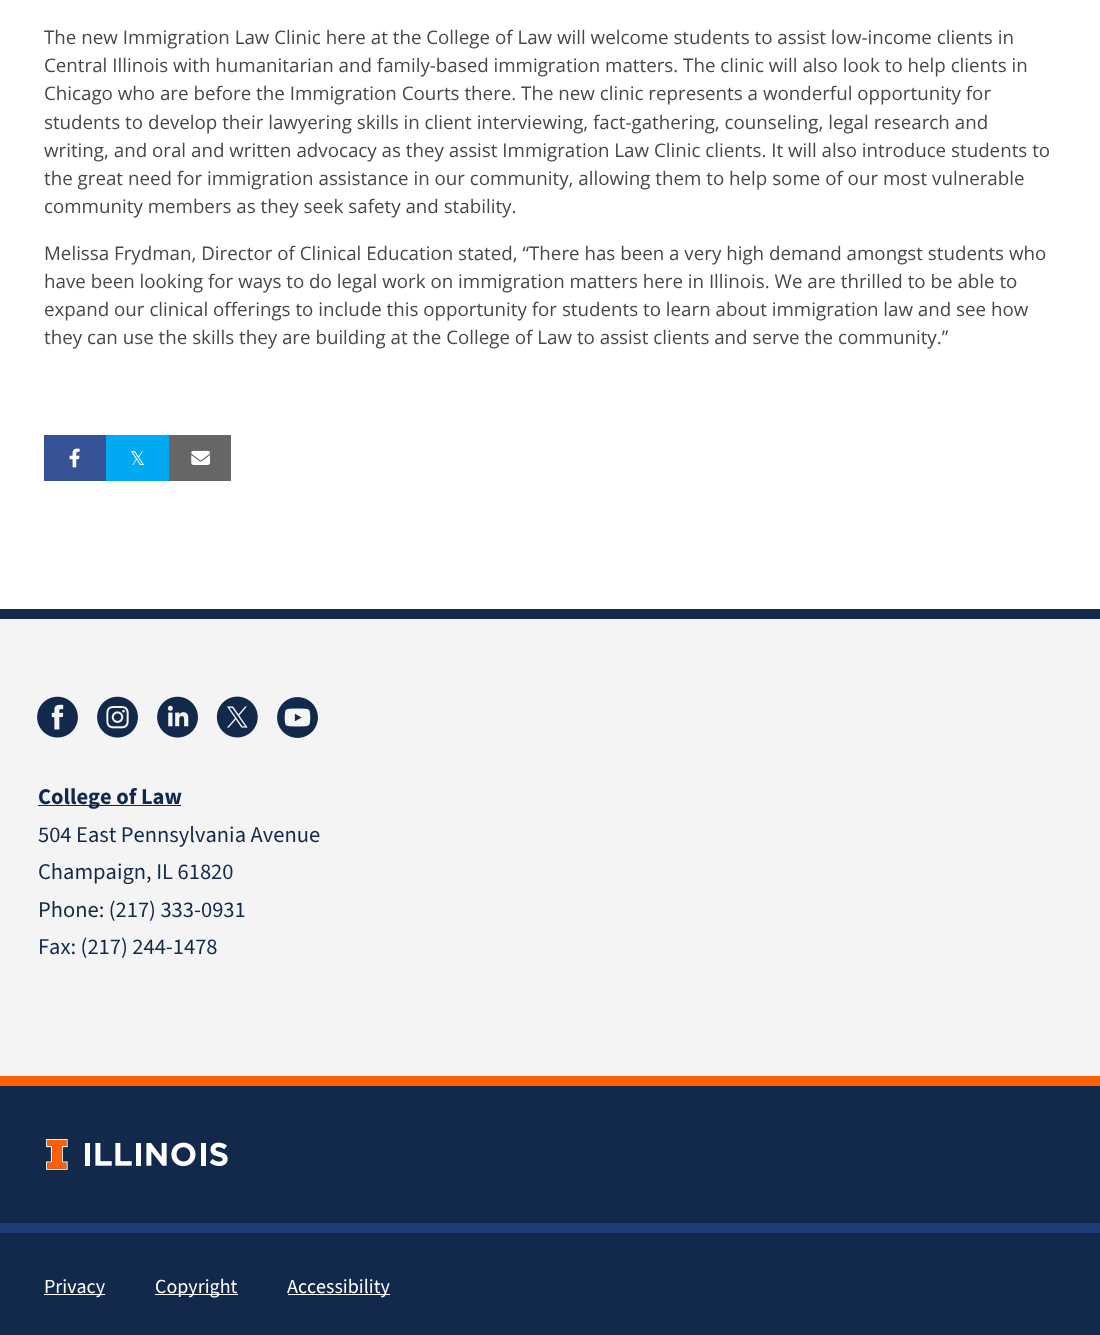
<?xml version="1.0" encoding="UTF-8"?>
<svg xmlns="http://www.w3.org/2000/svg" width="1100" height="1335">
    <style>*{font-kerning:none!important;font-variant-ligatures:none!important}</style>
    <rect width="100%" height="100%" fill="#FFFFFF"/>
    <text font-family="Open Sans" font-size="18.75" fill="#48484A">
        <tspan x="44" y="44">The new Immigration Law Clinic here at the College of Law will welcome students to assist low-income clients in</tspan>
        <tspan x="44" y="72">Central Illinois with humanitarian and family-based immigration matters. The clinic will also look to help clients in</tspan>
        <tspan x="44" y="100">Chicago who are before the Immigration Courts there. The new clinic represents a wonderful opportunity for</tspan>
        <tspan x="44" y="129">students to develop their lawyering skills in client interviewing, fact-gathering, counseling, legal research and</tspan>
        <tspan x="44" y="157">writing, and oral and written advocacy as they assist Immigration Law Clinic clients. It will also introduce students to</tspan>
        <tspan x="44" y="185">the great need for immigration assistance in our community, allowing them to help some of our most vulnerable</tspan>
        <tspan x="44" y="213">community members as they seek safety and stability.</tspan>
    </text>
    <text font-family="Open Sans" font-size="18.75" fill="#48484A">
        <tspan x="44" y="260">Melissa Frydman, Director of Clinical Education stated, “There has been a very high demand amongst students who</tspan>
        <tspan x="44" y="288">have been looking for ways to do legal work on immigration matters here in Illinois. We are thrilled to be able to</tspan>
        <tspan x="44" y="316">expand our clinical offerings to include this opportunity for students to learn about immigration law and see how</tspan>
        <tspan x="44" y="344">they can use the skills they are building at the College of Law to assist clients and serve the community.”</tspan>
    </text>
    <rect x="44" y="435" width="62" height="46" fill="#365397"/>
    <image x="69" y="448" width="11" height="20" href="img_01.png"/>
    <rect x="106" y="435" width="63" height="46" fill="#00A9F1"/>
    <text x="130" y="465" font-family="DejaVu Sans" font-size="18.75" fill="#FFFFFF">𝕏</text>
    <rect x="169" y="435" width="62" height="46" fill="#666666"/>
    <image x="191" y="450" width="19" height="15" href="img_02.png"/>
    <rect x="0" y="619" width="1100" height="457" fill="#F4F4F4"/>
    <rect x="0" y="609" width="1100" height="10" fill="#13294B"/>
    <image x="37" y="696" width="41" height="42" href="img_03.png"/>
    <image x="97" y="696" width="41" height="42" href="img_04.png"/>
    <image x="157" y="696" width="41" height="42" href="img_05.png"/>
    <image x="216" y="696" width="42" height="42" href="img_06.png"/>
    <image x="277" y="697" width="41" height="41" href="img_07.png"/>
    <rect x="38" y="805" width="143" height="1" fill="#13294B"/>
    <text x="38" y="804" font-family="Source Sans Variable" font-size="22.5" font-weight="700" fill="#13294B">College of Law</text>
    <text font-family="Source Sans Variable" font-size="22.5" fill="#13294B">
        <tspan x="38" y="842">504 East Pennsylvania Avenue</tspan>
        <tspan x="38" y="879">Champaign, IL 61820</tspan>
        <tspan x="38" y="917">Phone: (217) 333-0931</tspan>
        <tspan x="38" y="954">Fax: (217) 244-1478</tspan>
    </text>
    <rect x="0" y="1086" width="1100" height="137" fill="#13294B"/>
    <rect x="0" y="1076" width="1100" height="10" fill="#FF5F05"/>
    <image x="46" y="1139" width="182" height="31" href="img_08.png"/>
    <rect x="0" y="1233" width="1100" height="102" fill="#13294B"/>
    <rect x="0" y="1223" width="1100" height="10" fill="#1F3D7B"/>
    <rect x="44" y="1294" width="61" height="1" fill="#FFFFFF"/>
    <text x="44" y="1293" font-family="Source Sans Variable" font-size="20" fill="#FFFFFF">Privacy</text>
    <rect x="155" y="1294" width="83" height="1" fill="#FFFFFF"/>
    <text x="155" y="1293" font-family="Source Sans Variable" font-size="20" fill="#FFFFFF">Copyright</text>
    <rect x="288" y="1294" width="102" height="1" fill="#FFFFFF"/>
    <text x="287" y="1293" font-family="Source Sans Variable" font-size="20" fill="#FFFFFF">Accessibility</text>
</svg>
